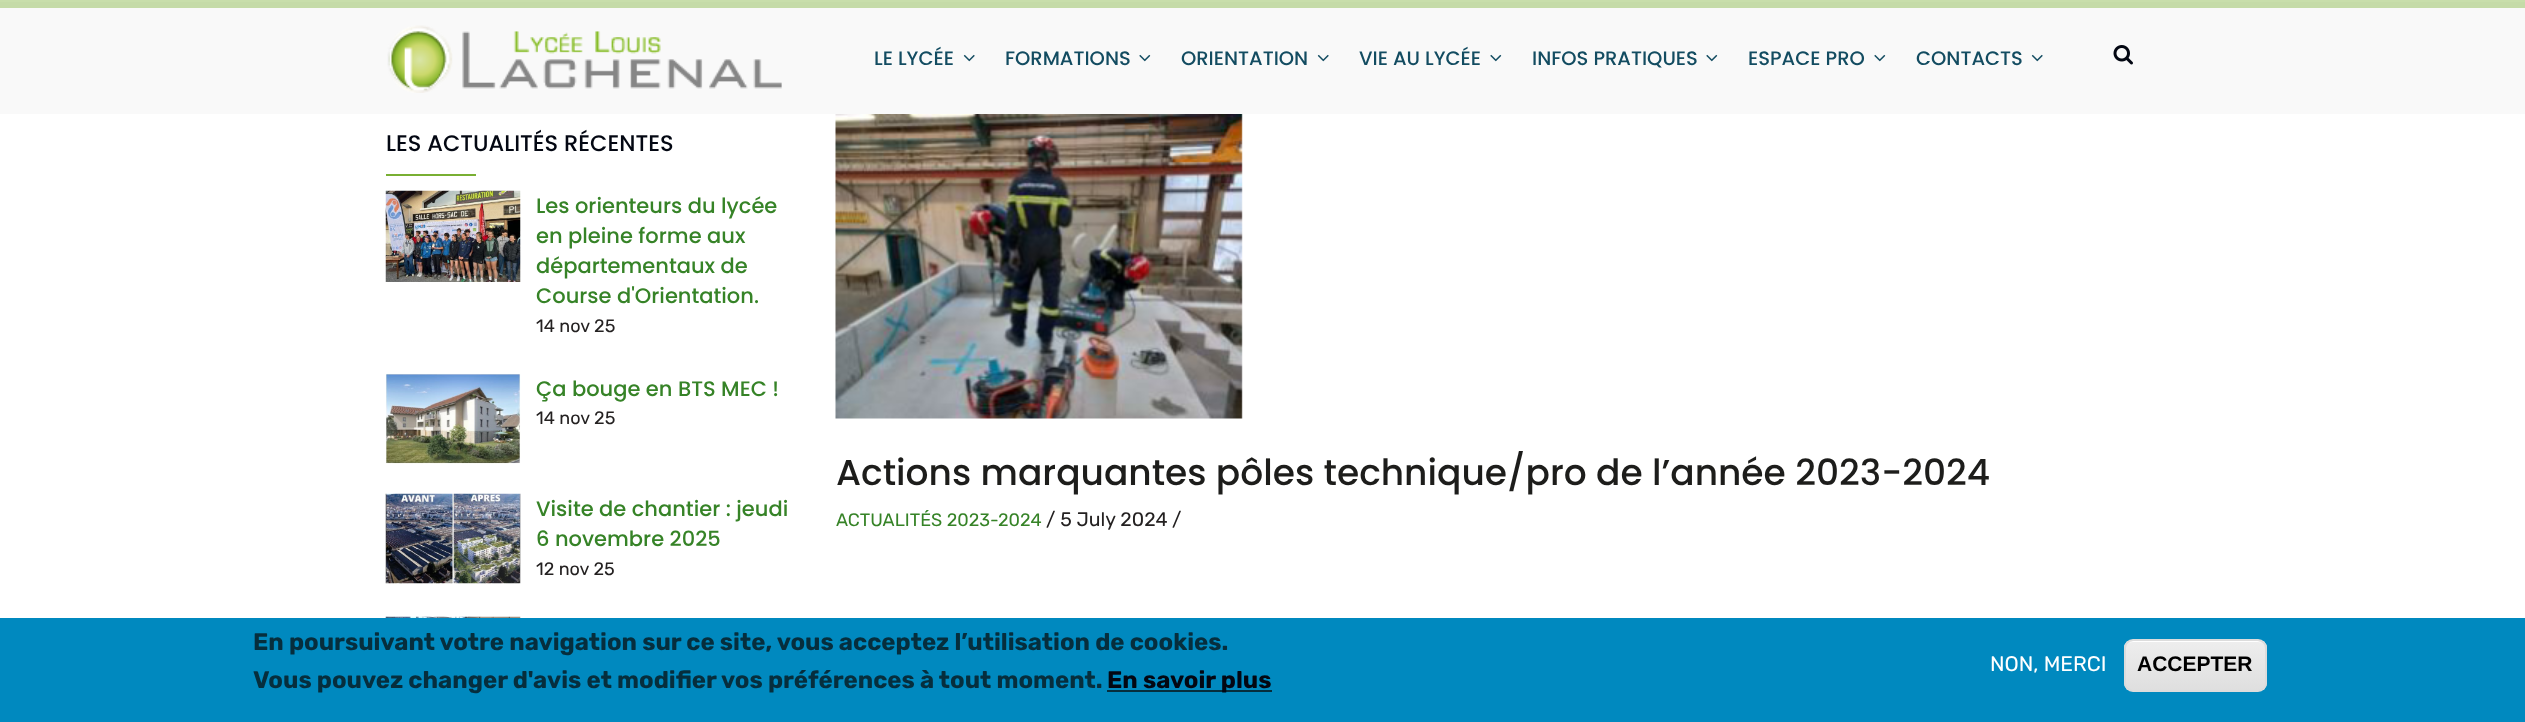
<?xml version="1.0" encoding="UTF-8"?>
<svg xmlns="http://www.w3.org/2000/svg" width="2525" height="722">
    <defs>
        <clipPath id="clip1"><rect x="2124" y="639" width="143" height="53" rx="9"/></clipPath>
        <linearGradient id="g1" gradientUnits="userSpaceOnUse" x1="2195" y1="641" x2="2195" y2="690"><stop offset="0.05" stop-color="#EDEDED"/><stop offset="1" stop-color="#DFDFDF"/></linearGradient>
    </defs>
    <rect width="100%" height="100%" fill="#FFFFFF"/>
    <rect x="0" y="0" width="2525" height="2" fill="#C8DEAB"/>
    <rect x="0" y="8" width="2525" height="106" fill="#F9F9F9"/>
    <rect x="0" y="2" width="2525" height="6" fill="#C5DBA8"/>
    <image x="387" y="25" width="395" height="68" href="img_01.png"/>
    <text x="874" y="65" font-family="Poppins" font-size="19.5" font-weight="500" fill="#134C61">LE LYCÉE</text>
    <image x="963" y="54" width="12" height="8" href="img_02.png"/>
    <text x="1005" y="65" font-family="Poppins" font-size="19.5" font-weight="500" fill="#134C61">FORMATIONS</text>
    <image x="1139" y="54" width="12" height="8" href="img_03.png"/>
    <text x="1181" y="65" font-family="Poppins" font-size="19.5" font-weight="500" fill="#134C61">ORIENTATION</text>
    <image x="1317" y="54" width="12" height="8" href="img_02.png"/>
    <text x="1359" y="65" font-family="Poppins" font-size="19.5" font-weight="500" fill="#134C61">VIE AU LYCÉE</text>
    <image x="1490" y="54" width="12" height="8" href="img_03.png"/>
    <text x="1532" y="65" font-family="Poppins" font-size="19.5" font-weight="500" fill="#134C61">INFOS PRATIQUES</text>
    <image x="1706" y="54" width="12" height="8" href="img_03.png"/>
    <text x="1748" y="65" font-family="Poppins" font-size="19.5" font-weight="500" fill="#134C61">ESPACE PRO</text>
    <image x="1874" y="54" width="12" height="8" href="img_03.png"/>
    <text x="1916" y="65" font-family="Poppins" font-size="19.5" font-weight="500" fill="#134C61">CONTACTS</text>
    <image x="2031" y="54" width="12" height="8" href="img_02.png"/>
    <image x="2113" y="45" width="20" height="20" href="img_04.png"/>
    <text x="386" y="151" font-family="Poppins" font-size="22.5" font-weight="500" fill="#030712">LES ACTUALITÉS RÉCENTES</text>
    <rect x="386" y="174" width="90" height="2" fill="#79AF33"/>
    <image x="385" y="190" width="136" height="92" href="img_05.png"/>
    <text font-family="Poppins" font-size="21" font-weight="500" fill="#368327">
        <tspan x="536" y="213">Les orienteurs du lycée</tspan>
        <tspan x="536" y="243">en pleine forme aux</tspan>
        <tspan x="536" y="273">départementaux de</tspan>
        <tspan x="536" y="303">Course d'Orientation.</tspan>
    </text>
    <text x="536" y="332" font-family="Rubik" font-size="18" fill="#242121">14 nov 25</text>
    <image x="385" y="373" width="136" height="91" href="img_06.png"/>
    <text x="536" y="396" font-family="Poppins" font-size="21" font-weight="500" fill="#368327">Ça bouge en BTS MEC !</text>
    <text x="536" y="424" font-family="Rubik" font-size="18" fill="#242121">14 nov 25</text>
    <image x="385" y="493" width="136" height="91" href="img_07.png"/>
    <text font-family="Poppins" font-size="21" font-weight="500" fill="#368327">
        <tspan x="536" y="516">Visite de chantier : jeudi</tspan>
        <tspan x="536" y="546">6 novembre 2025</tspan>
    </text>
    <text x="536" y="575" font-family="Rubik" font-size="18" fill="#242121">12 nov 25</text>
    <image x="385" y="616" width="136" height="2" href="img_08.png"/>
    <image x="835" y="114" width="408" height="305" href="img_09.png"/>
    <text x="836" y="485" font-family="Poppins" font-size="36" font-weight="500" fill="#1D1D1B">Actions marquantes pôles technique/pro de l’année 2023-2024</text>
    <text x="836" y="526" font-family="Rubik" font-size="18" fill="#368327">ACTUALITÉS 2023-2024</text>
    <text x="1046" y="526" font-family="Rubik" font-size="19.5" fill="#242121">/ 5 July 2024</text>
    <text x="1172" y="526" font-family="Rubik" font-size="19.5" fill="#242121">/</text>
    <rect x="0" y="618" width="2525" height="104" fill="#0089BF"/>
    <text font-family="Rubik" font-size="24" font-weight="700" fill="#062E3D">
        <tspan x="253" y="650">En poursuivant votre navigation sur ce site, vous acceptez l’utilisation de cookies.</tspan>
        <tspan x="253" y="688">Vous pouvez changer d'avis et modifier vos préférences à tout moment.</tspan>
    </text>
    <rect x="1107" y="690" width="165" height="2" fill="#062E3D"/>
    <text x="1107" y="688" font-family="Rubik" font-size="24" font-weight="700" fill="#030712">En savoir plus</text>
    <text x="1990" y="671" font-family="Rubik" font-size="21" fill="#FFFFFF">NON, MERCI</text>
    <g clip-path="url(#clip1)">
        <rect x="2124" y="641" width="143" height="49" fill="url(#g1)"/>
    </g>
    <path d="M 2133 642 H 2258 C 2262 642 2265 645 2265 650 C 2265 636 2244 641 2236 641 H 2154 C 2147 641 2126 636 2126 650 C 2126 645 2129 642 2133 642 Z" fill="#FFFFFF"/>
    <rect x="2125" y="640" width="141" height="51" rx="8" fill="none" stroke="#DCDCDC" stroke-width="2"/>
    <text x="2137" y="671" font-family="Liberation Sans" font-size="21" font-weight="700" fill="#000000">ACCEPTER</text>
</svg>
